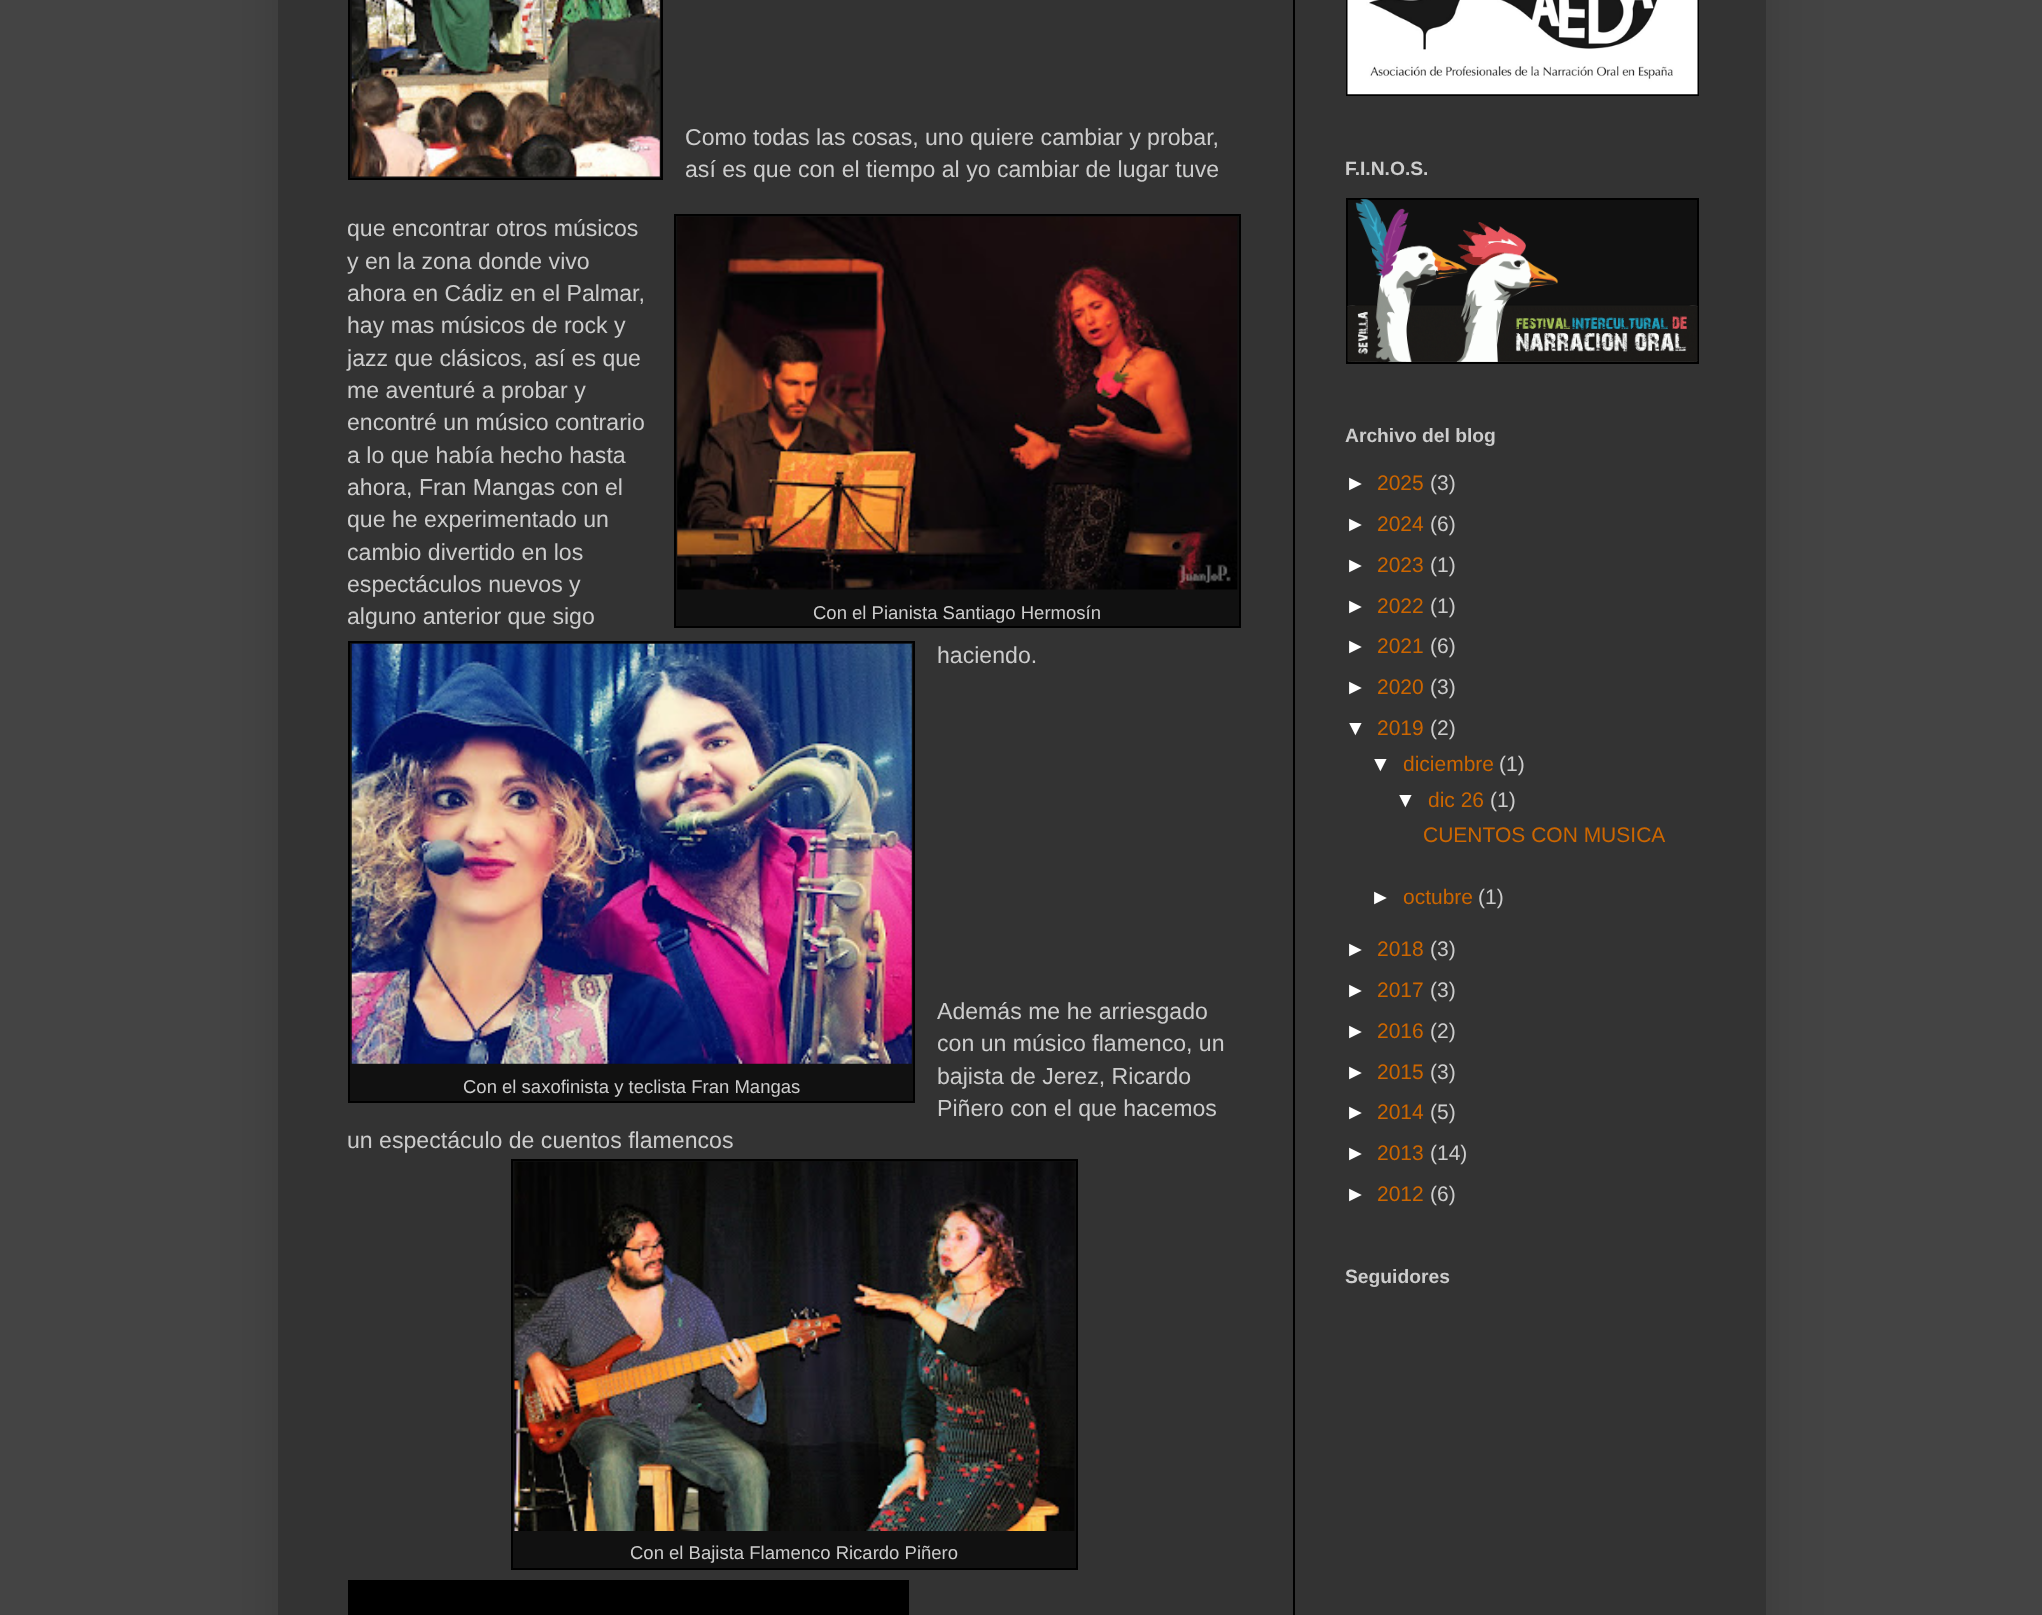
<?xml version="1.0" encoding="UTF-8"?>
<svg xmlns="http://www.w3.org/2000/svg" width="2042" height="1615">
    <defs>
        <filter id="blur1" x="-50%" y="-200%" width="200%" height="500%"><feGaussianBlur stdDeviation="35"/></filter>
    </defs>
    <rect width="100%" height="100%" fill="#444444"/>
    <rect x="278" y="-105" width="1488" height="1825" fill="#000000" fill-opacity="0.15" filter="url(#blur1)"/>
    <rect x="278" y="0" width="1488" height="1615" fill="#333333"/>
    <rect x="1293" y="0" width="2" height="1615" fill="#000000"/>
    <rect x="349" y="-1" width="313" height="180" fill="#111111" stroke="#000000" stroke-width="2"/>
    <image x="351" y="0" width="309" height="177" href="img_01.png"/>
    <text font-family="Liberation Sans" font-size="23.1" fill="#CCCCCC">
        <tspan x="685" y="145">Como todas las cosas, uno quiere cambiar y probar,</tspan>
        <tspan x="685" y="177">así es que con el tiempo al yo cambiar de lugar tuve</tspan>
    </text>
    <text font-family="Liberation Sans" font-size="23.1" fill="#CCCCCC">
        <tspan x="347" y="236">que encontrar otros músicos</tspan>
        <tspan x="347" y="269">y en la zona donde vivo</tspan>
        <tspan x="347" y="301">ahora en Cádiz en el Palmar,</tspan>
        <tspan x="347" y="333">hay mas músicos de rock y</tspan>
        <tspan x="347" y="366">jazz que clásicos, así es que</tspan>
        <tspan x="347" y="398">me aventuré a probar y</tspan>
        <tspan x="347" y="430">encontré un músico contrario</tspan>
        <tspan x="347" y="463">a lo que había hecho hasta</tspan>
        <tspan x="347" y="495">ahora, Fran Mangas con el</tspan>
        <tspan x="347" y="527">que he experimentado un</tspan>
        <tspan x="347" y="560">cambio divertido en los</tspan>
        <tspan x="347" y="592">espectáculos nuevos y</tspan>
        <tspan x="347" y="624">alguno anterior que sigo</tspan>
    </text>
    <rect x="675" y="215" width="565" height="412" fill="#111111" stroke="#000000" stroke-width="2"/>
    <image x="677" y="216" width="561" height="374" href="img_02.png"/>
    <text x="813" y="619" font-family="Liberation Sans" font-size="18.5" fill="#CCCCCC">Con el Pianista Santiago Hermosín</text>
    <text x="937" y="663" font-family="Liberation Sans" font-size="23.1" fill="#CCCCCC">haciendo.</text>
    <text font-family="Liberation Sans" font-size="23.1" fill="#CCCCCC">
        <tspan x="937" y="1019">Además me he arriesgado</tspan>
        <tspan x="937" y="1051">con un músico flamenco, un</tspan>
    </text>
    <rect x="349" y="642" width="565" height="460" fill="#111111" stroke="#000000" stroke-width="2"/>
    <image x="351" y="643" width="561" height="421" href="img_03.png"/>
    <text x="463" y="1093" font-family="Liberation Sans" font-size="18.5" fill="#CCCCCC">Con el saxofinista y teclista Fran Mangas</text>
    <text font-family="Liberation Sans" font-size="23.1" fill="#CCCCCC">
        <tspan x="937" y="1084">bajista de Jerez, Ricardo</tspan>
        <tspan x="937" y="1116">Piñero con el que hacemos</tspan>
    </text>
    <text x="347" y="1148" font-family="Liberation Sans" font-size="23.1" fill="#CCCCCC">un espectáculo de cuentos flamencos</text>
    <rect x="512" y="1160" width="565" height="409" fill="#111111" stroke="#000000" stroke-width="2"/>
    <image x="514" y="1161" width="561" height="370" href="img_04.png"/>
    <text x="630" y="1559" font-family="Liberation Sans" font-size="18.5" fill="#CCCCCC">Con el Bajista Flamenco Ricardo Piñero</text>
    <rect x="348" y="1580" width="561" height="35" fill="#000000"/>
    <rect x="1347" y="-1" width="351" height="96" fill="none" stroke="#000000" stroke-width="2"/>
    <image x="1347" y="0" width="351" height="95" href="img_05.png"/>
    <text x="1345" y="175" font-family="Liberation Sans" font-size="19.25" font-weight="700" fill="#CCCCCC">F.I.N.O.S.</text>
    <rect x="1347" y="199" width="351" height="164" fill="#111111" stroke="#000000" stroke-width="2"/>
    <image x="1347" y="199" width="351" height="163" href="img_06.png"/>
    <text x="1345" y="442" font-family="Liberation Sans" font-size="19.25" font-weight="700" fill="#CCCCCC">Archivo del blog</text>
    <text x="1345" y="490" font-family="Liberation Sans" font-size="21" fill="#FFFFFF">►</text>
    <text x="1377" y="490" font-family="Liberation Sans" font-size="21" fill="#CC6600">2025</text>
    <text x="1430" y="490" font-family="Liberation Sans" font-size="21" fill="#CCCCCC">(3)</text>
    <text x="1345" y="531" font-family="Liberation Sans" font-size="21" fill="#FFFFFF">►</text>
    <text x="1377" y="531" font-family="Liberation Sans" font-size="21" fill="#CC6600">2024</text>
    <text x="1430" y="531" font-family="Liberation Sans" font-size="21" fill="#CCCCCC">(6)</text>
    <text x="1345" y="572" font-family="Liberation Sans" font-size="21" fill="#FFFFFF">►</text>
    <text x="1377" y="572" font-family="Liberation Sans" font-size="21" fill="#CC6600">2023</text>
    <text x="1430" y="572" font-family="Liberation Sans" font-size="21" fill="#CCCCCC">(1)</text>
    <text x="1345" y="613" font-family="Liberation Sans" font-size="21" fill="#FFFFFF">►</text>
    <text x="1377" y="613" font-family="Liberation Sans" font-size="21" fill="#CC6600">2022</text>
    <text x="1430" y="613" font-family="Liberation Sans" font-size="21" fill="#CCCCCC">(1)</text>
    <text x="1345" y="653" font-family="Liberation Sans" font-size="21" fill="#FFFFFF">►</text>
    <text x="1377" y="653" font-family="Liberation Sans" font-size="21" fill="#CC6600">2021</text>
    <text x="1430" y="653" font-family="Liberation Sans" font-size="21" fill="#CCCCCC">(6)</text>
    <text x="1345" y="694" font-family="Liberation Sans" font-size="21" fill="#FFFFFF">►</text>
    <text x="1377" y="694" font-family="Liberation Sans" font-size="21" fill="#CC6600">2020</text>
    <text x="1430" y="694" font-family="Liberation Sans" font-size="21" fill="#CCCCCC">(3)</text>
    <text x="1345" y="735" font-family="Liberation Sans" font-size="21" fill="#FFFFFF">▼</text>
    <text x="1377" y="735" font-family="Liberation Sans" font-size="21" fill="#CC6600">2019</text>
    <text x="1430" y="735" font-family="Liberation Sans" font-size="21" fill="#CCCCCC">(2)</text>
    <text x="1370" y="771" font-family="Liberation Sans" font-size="21" fill="#FFFFFF">▼</text>
    <text x="1403" y="771" font-family="Liberation Sans" font-size="21" fill="#CC6600">diciembre</text>
    <text x="1499" y="771" font-family="Liberation Sans" font-size="21" fill="#CCCCCC">(1)</text>
    <text x="1395" y="807" font-family="Liberation Sans" font-size="21" fill="#FFFFFF">▼</text>
    <text x="1428" y="807" font-family="Liberation Sans" font-size="21" fill="#CC6600">dic 26</text>
    <text x="1490" y="807" font-family="Liberation Sans" font-size="21" fill="#CCCCCC">(1)</text>
    <text x="1423" y="842" font-family="Liberation Sans" font-size="21" fill="#CC6600">CUENTOS CON MUSICA</text>
    <text x="1370" y="904" font-family="Liberation Sans" font-size="21" fill="#FFFFFF">►</text>
    <text x="1403" y="904" font-family="Liberation Sans" font-size="21" fill="#CC6600">octubre</text>
    <text x="1478" y="904" font-family="Liberation Sans" font-size="21" fill="#CCCCCC">(1)</text>
    <text x="1345" y="956" font-family="Liberation Sans" font-size="21" fill="#FFFFFF">►</text>
    <text x="1377" y="956" font-family="Liberation Sans" font-size="21" fill="#CC6600">2018</text>
    <text x="1430" y="956" font-family="Liberation Sans" font-size="21" fill="#CCCCCC">(3)</text>
    <text x="1345" y="997" font-family="Liberation Sans" font-size="21" fill="#FFFFFF">►</text>
    <text x="1377" y="997" font-family="Liberation Sans" font-size="21" fill="#CC6600">2017</text>
    <text x="1430" y="997" font-family="Liberation Sans" font-size="21" fill="#CCCCCC">(3)</text>
    <text x="1345" y="1038" font-family="Liberation Sans" font-size="21" fill="#FFFFFF">►</text>
    <text x="1377" y="1038" font-family="Liberation Sans" font-size="21" fill="#CC6600">2016</text>
    <text x="1430" y="1038" font-family="Liberation Sans" font-size="21" fill="#CCCCCC">(2)</text>
    <text x="1345" y="1079" font-family="Liberation Sans" font-size="21" fill="#FFFFFF">►</text>
    <text x="1377" y="1079" font-family="Liberation Sans" font-size="21" fill="#CC6600">2015</text>
    <text x="1430" y="1079" font-family="Liberation Sans" font-size="21" fill="#CCCCCC">(3)</text>
    <text x="1345" y="1119" font-family="Liberation Sans" font-size="21" fill="#FFFFFF">►</text>
    <text x="1377" y="1119" font-family="Liberation Sans" font-size="21" fill="#CC6600">2014</text>
    <text x="1430" y="1119" font-family="Liberation Sans" font-size="21" fill="#CCCCCC">(5)</text>
    <text x="1345" y="1160" font-family="Liberation Sans" font-size="21" fill="#FFFFFF">►</text>
    <text x="1377" y="1160" font-family="Liberation Sans" font-size="21" fill="#CC6600">2013</text>
    <text x="1430" y="1160" font-family="Liberation Sans" font-size="21" fill="#CCCCCC">(14)</text>
    <text x="1345" y="1201" font-family="Liberation Sans" font-size="21" fill="#FFFFFF">►</text>
    <text x="1377" y="1201" font-family="Liberation Sans" font-size="21" fill="#CC6600">2012</text>
    <text x="1430" y="1201" font-family="Liberation Sans" font-size="21" fill="#CCCCCC">(6)</text>
    <text x="1345" y="1283" font-family="Liberation Sans" font-size="19.25" font-weight="700" fill="#CCCCCC">Seguidores</text>
</svg>
